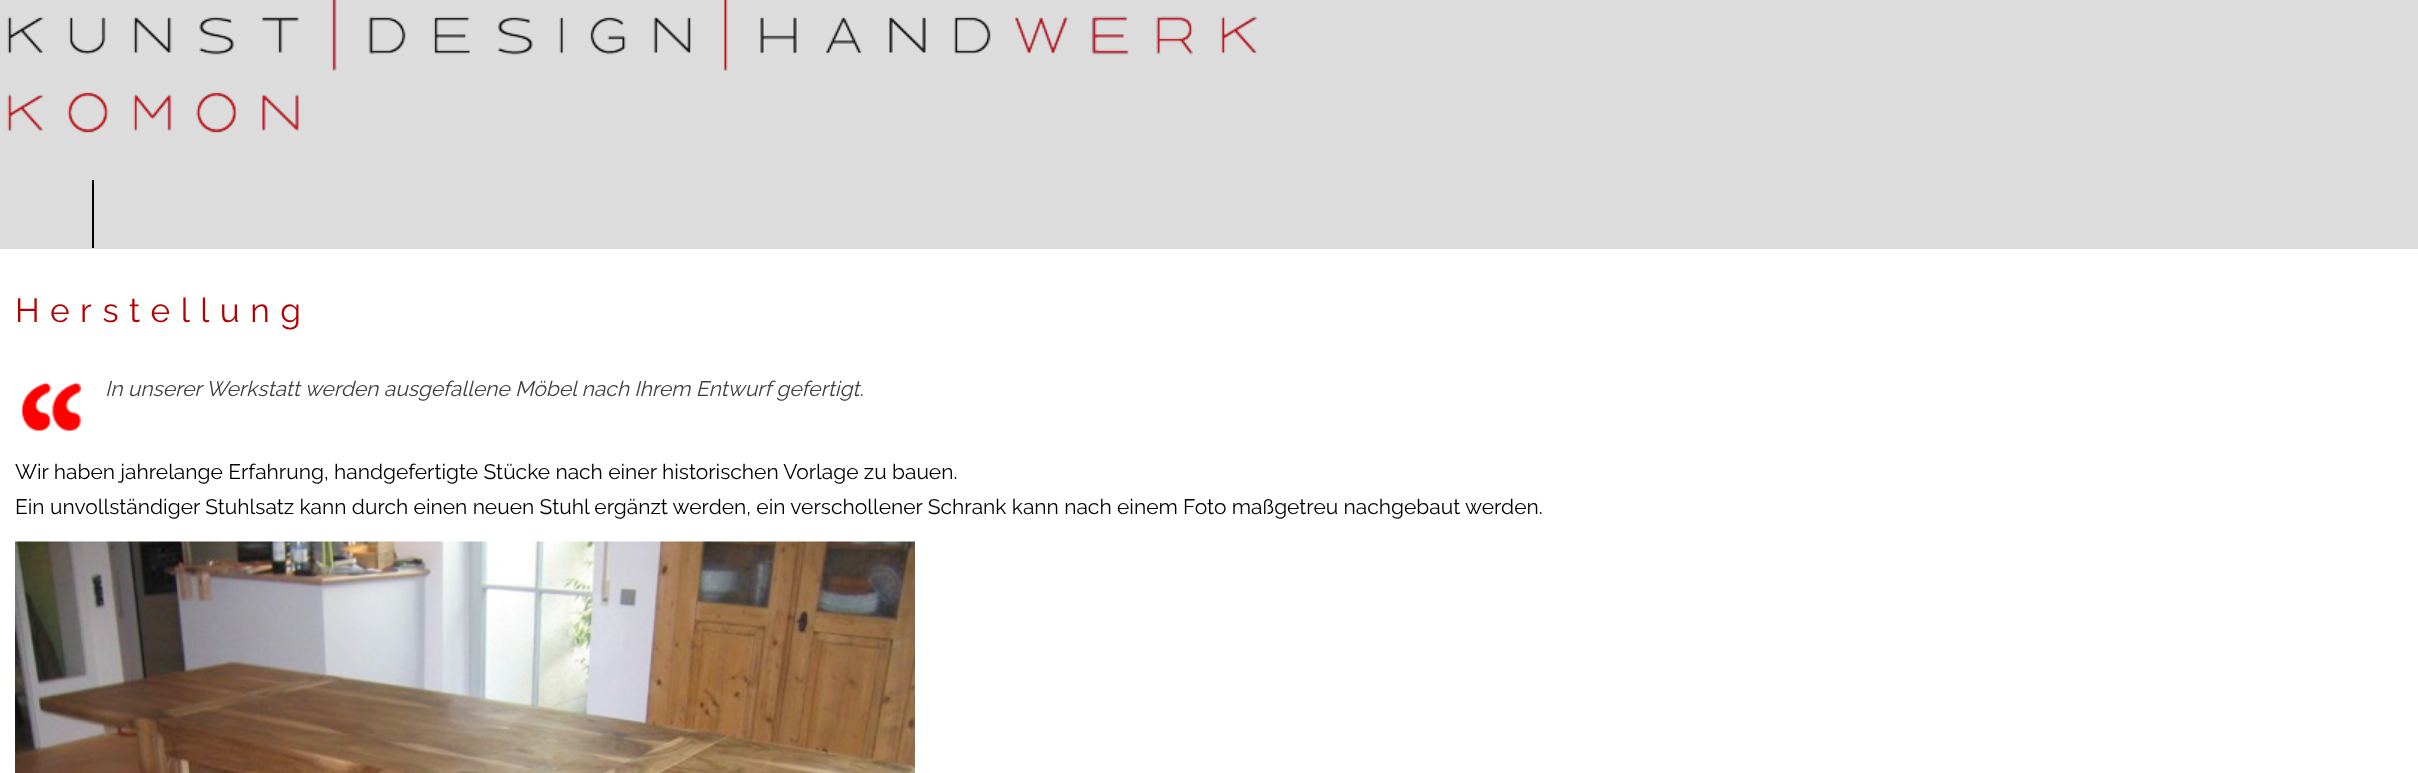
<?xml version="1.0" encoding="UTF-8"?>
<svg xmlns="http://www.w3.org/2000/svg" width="2418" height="773">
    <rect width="100%" height="100%" fill="#DCDCDC"/>
    <image x="7" y="0" width="1251" height="133" href="img_01.png"/>
    <rect x="92" y="180" width="2" height="68" fill="#000000"/>
    <rect x="0" y="249" width="2418" height="524" fill="#FFFFFF"/>
    <text x="15" y="322" font-family="Raleway" font-size="33.5" font-weight="100" letter-spacing="10.5" fill="#B30000">Herstellung</text>
    <image x="20" y="382" width="62" height="49" href="img_02.png"/>
    <text x="105" y="396" font-family="Raleway" font-size="21" font-weight="100" font-style="italic" fill="#404040">In unserer Werkstatt werden ausgefallene Möbel nach Ihrem Entwurf gefertigt.</text>
    <text font-family="Raleway" font-size="21" font-weight="100" fill="#000000">
        <tspan x="15" y="479">Wir haben jahrelange Erfahrung, handgefertigte Stücke nach einer historischen Vorlage zu bauen.</tspan>
        <tspan x="15" y="514">Ein unvollständiger Stuhlsatz kann durch einen neuen Stuhl ergänzt werden, ein verschollener Schrank kann nach einem Foto maßgetreu nachgebaut werden.</tspan>
    </text>
    <image x="15" y="541" width="900" height="232" href="img_03.png"/>
</svg>
